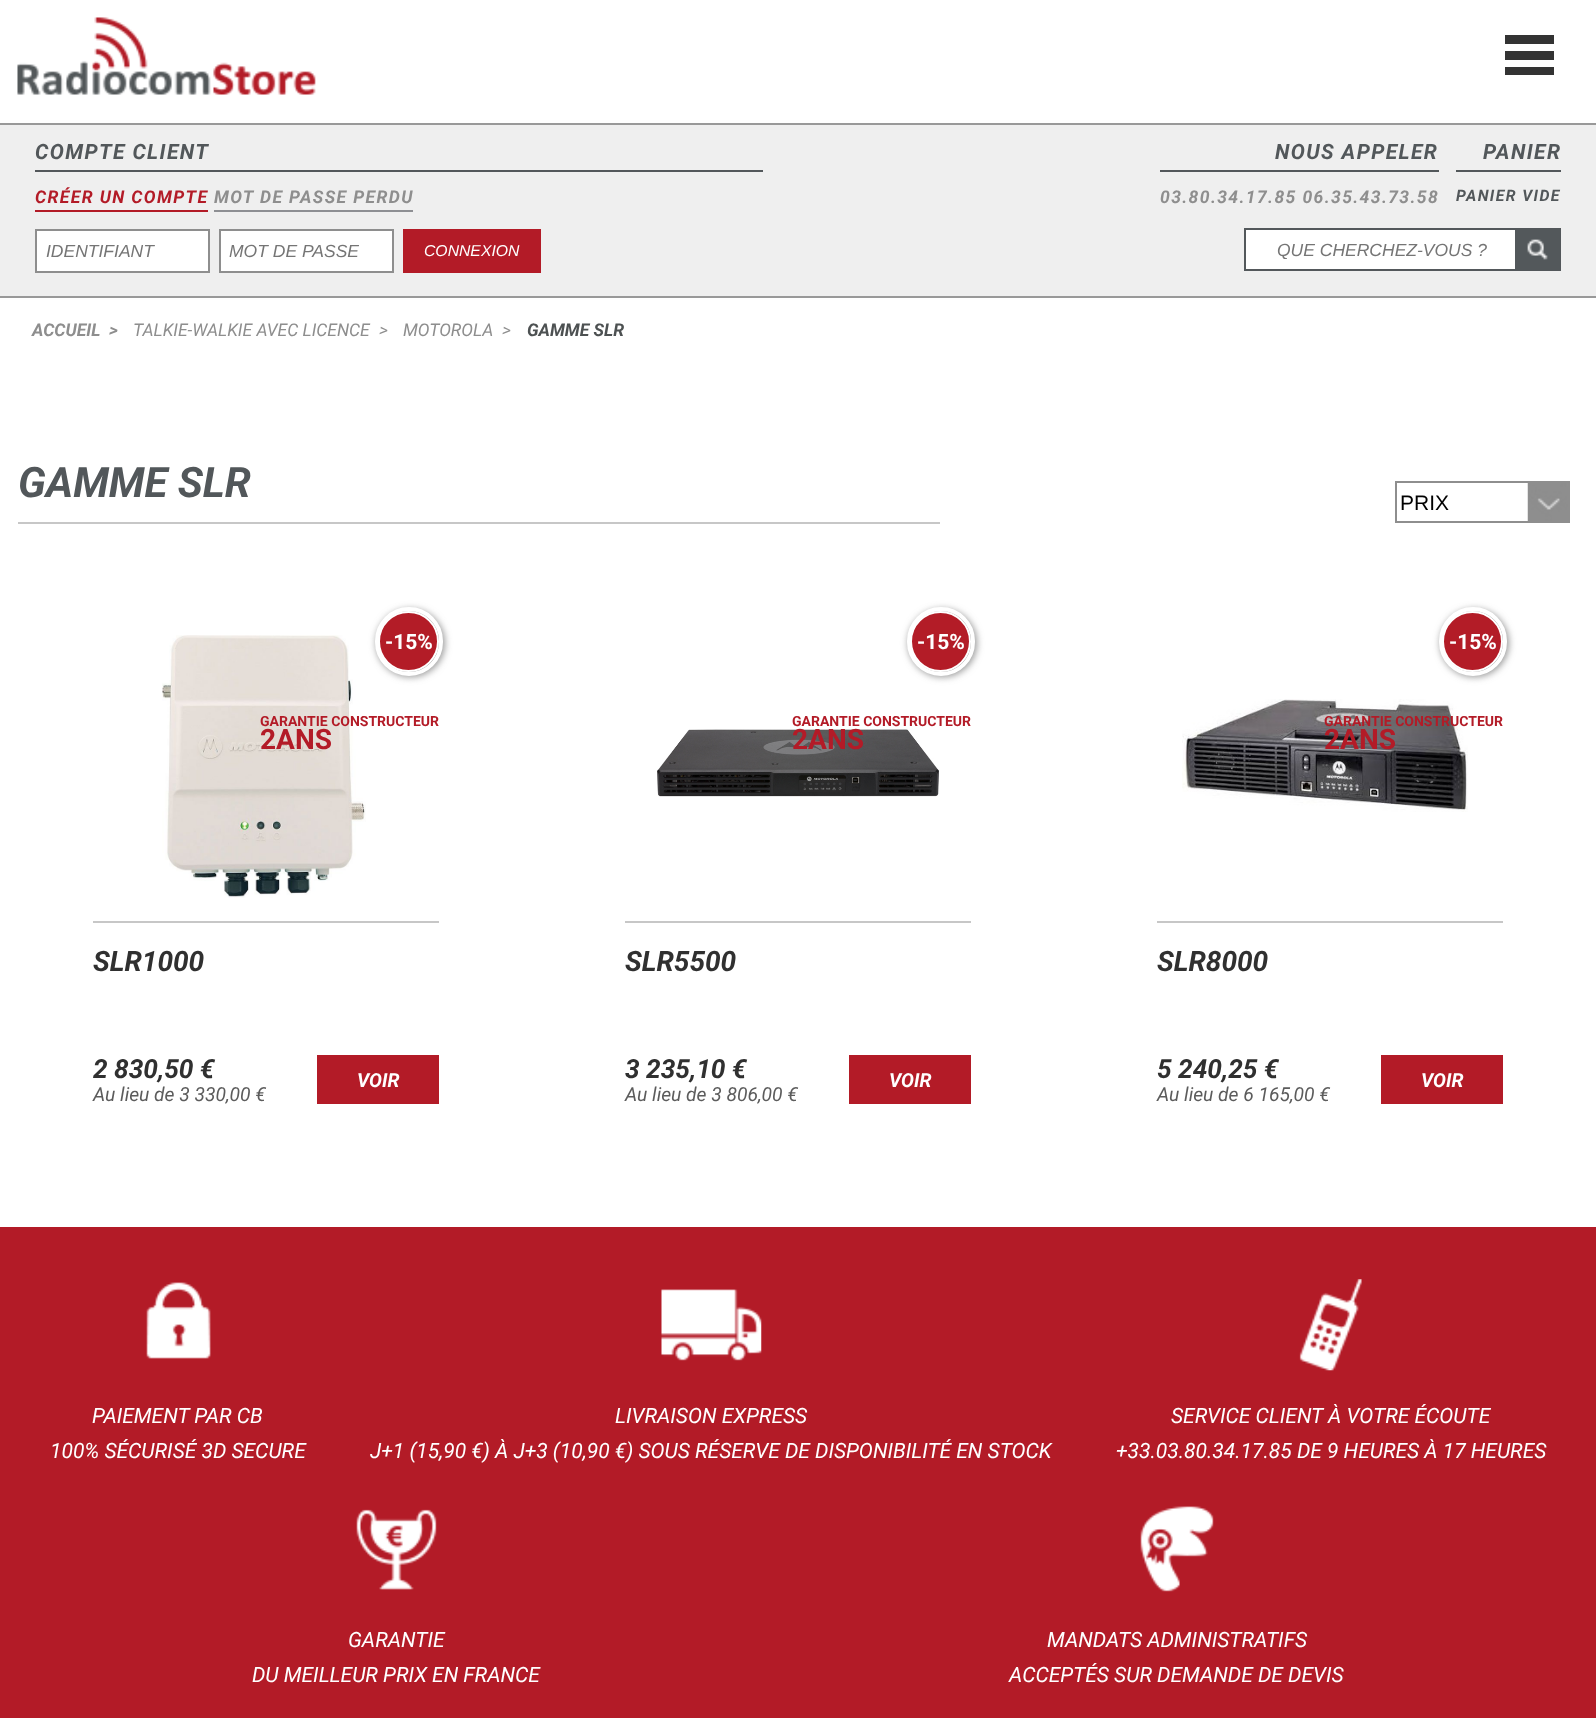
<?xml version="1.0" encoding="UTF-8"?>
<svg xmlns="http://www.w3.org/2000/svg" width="1596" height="1718">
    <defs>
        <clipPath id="clip1"><rect x="1255" y="240" width="233" height="19"/></clipPath>
        <filter id="blur1" x="-50%" y="-200%" width="200%" height="500%"><feGaussianBlur stdDeviation="3.5"/></filter>
    </defs>
    <rect width="100%" height="100%" fill="#FFFFFF"/>
    <rect x="1505" y="35" width="49" height="9" fill="#333333"/>
    <rect x="1505" y="51" width="49" height="9" fill="#333333"/>
    <rect x="1505" y="67" width="49" height="8" fill="#333333"/>
    <image x="17" y="17" width="299" height="78" href="img_01.png"/>
    <rect x="0" y="125" width="1596" height="171" fill="#EFEFEF"/>
    <rect x="0" y="123" width="1596" height="2" fill="#999999"/>
    <rect x="0" y="296" width="1596" height="2" fill="#999999"/>
    <rect x="35" y="170" width="728" height="2" fill="#53585B"/>
    <text x="35" y="159" font-family="Roboto" font-size="21" font-weight="700" font-style="italic" letter-spacing="1.4" fill="#52575A">COMPTE CLIENT</text>
    <rect x="35" y="210" width="173" height="2" fill="#B31B27"/>
    <text x="35" y="203" font-family="Roboto" font-size="17.5" font-weight="700" font-style="italic" letter-spacing="1.4" fill="#B31B27">CRÉER UN COMPTE</text>
    <rect x="214" y="210" width="199" height="2" fill="#8E8F93"/>
    <text x="214" y="203" font-family="Roboto" font-size="17.5" font-weight="700" font-style="italic" letter-spacing="1.4" fill="#8E8E8E">MOT DE PASSE PERDU</text>
    <rect x="36" y="230" width="173" height="42" fill="#FFFFFF" stroke="#8E8E8E" stroke-width="2"/>
    <text x="46" y="257" font-family="Liberation Sans" font-size="17.5" font-style="italic" fill="#757575">IDENTIFIANT</text>
    <rect x="220" y="230" width="173" height="42" fill="#FFFFFF" stroke="#8E8E8E" stroke-width="2"/>
    <text x="229" y="257" font-family="Liberation Sans" font-size="17.5" font-style="italic" fill="#757575">MOT DE PASSE</text>
    <rect x="403" y="229" width="138" height="44" fill="#B31B27"/>
    <text x="424" y="256" font-family="Liberation Sans" font-size="15.75" font-style="italic" fill="#FFFFFF">CONNEXION</text>
    <rect x="1160" y="170" width="279" height="2" fill="#53585B"/>
    <text x="1275" y="159" font-family="Roboto" font-size="21" font-weight="700" font-style="italic" letter-spacing="1.4" fill="#52575A">NOUS APPELER</text>
    <text x="1160" y="203" font-family="Roboto" font-size="17.5" font-weight="700" font-style="italic" letter-spacing="1.4" fill="#8E8E8E">03.80.34.17.85 06.35.43.73.58</text>
    <rect x="1456" y="170" width="105" height="2" fill="#53585B"/>
    <text x="1483" y="159" font-family="Roboto" font-size="21" font-weight="700" font-style="italic" letter-spacing="1.4" fill="#52575A">PANIER</text>
    <text x="1456" y="201" font-family="Roboto" font-size="15.75" font-weight="700" font-style="italic" letter-spacing="1.4" fill="#52575A">PANIER VIDE</text>
    <rect x="1245" y="229" width="271" height="41" fill="#FFFFFF" stroke="#53585B" stroke-width="2"/>
    <g clip-path="url(#clip1)">
        <text x="1277" y="256" font-family="Liberation Sans" font-size="17.5" font-style="italic" fill="#757575">QUE CHERCHEZ-VOUS ?</text>
    </g>
    <rect x="1517" y="228" width="44" height="43" fill="#53585B"/>
    <image x="1527" y="239" width="21" height="21" href="img_02.png"/>
    <text x="32" y="336" font-family="Roboto" font-size="17.5" font-weight="700" font-style="italic" fill="#8E8E8E">ACCUEIL</text>
    <text x="109" y="336" font-family="Roboto" font-size="17.5" font-weight="700" font-style="italic" fill="#8E8E8E">&gt;</text>
    <text x="133" y="336" font-family="Roboto" font-size="17.5" font-style="italic" fill="#8E8E8E">TALKIE-WALKIE AVEC LICENCE</text>
    <text x="379" y="336" font-family="Roboto" font-size="17.5" font-style="italic" fill="#8E8E8E">&gt;</text>
    <text x="403" y="336" font-family="Roboto" font-size="17.5" font-style="italic" fill="#8E8E8E">MOTOROLA</text>
    <text x="502" y="336" font-family="Roboto" font-size="17.5" font-style="italic" fill="#8E8E8E">&gt;</text>
    <text x="527" y="336" font-family="Roboto" font-size="17.5" font-weight="700" font-style="italic" fill="#4D5152">GAMME SLR</text>
    <rect x="18" y="522" width="922" height="2" fill="#C7C7C7"/>
    <text x="18" y="497" font-family="Roboto" font-size="42" font-weight="700" font-style="italic" fill="#52575A">GAMME SLR</text>
    <image x="1527" y="483" width="41" height="38" href="img_03.png"/>
    <rect x="1396" y="482" width="173" height="40" fill="none" stroke="#8E8E8E" stroke-width="2"/>
    <text x="1400" y="510" font-family="Liberation Sans" font-size="21" fill="#000000">PRIX</text>
    <image x="162" y="635" width="204" height="263" href="img_04.png"/>
    <rect x="376" y="609" width="69" height="68" rx="34" fill="#999999" filter="url(#blur1)"/>
    <rect x="377" y="609" width="64" height="65" rx="32" fill="none" stroke="#FFFFFF" stroke-width="4"/>
    <circle cx="408.5" cy="641.5" r="29.5" fill="#B31C27" stroke="#FFFFFF" stroke-width="2"/>
    <text x="385" y="649" font-family="Roboto" font-size="21" font-weight="700" fill="#FFFFFF">-15%</text>
    <text x="260" y="726" font-family="Roboto" font-size="14" font-weight="700" fill="#B31B27">GARANTIE CONSTRUCTEUR</text>
    <text x="260" y="749" font-family="Roboto" font-size="28" font-weight="700" fill="#B31B27">2ANS</text>
    <rect x="93" y="921" width="346" height="2" fill="#C7C7C7"/>
    <text x="93" y="971" font-family="Roboto" font-size="28" font-weight="700" font-style="italic" fill="#303030">SLR1000</text>
    <text x="93" y="1078" font-family="Roboto" font-size="26.25" font-weight="700" font-style="italic" fill="#303030">2 830,50 €</text>
    <text x="93" y="1101" font-family="Roboto" font-size="19.25" font-style="italic" fill="#5C5C5C">Au lieu de 3 330,00 €</text>
    <rect x="317" y="1055" width="122" height="49" fill="#B31B27"/>
    <text x="357" y="1087" font-family="Roboto" font-size="19.25" font-weight="700" font-style="italic" fill="#FFFFFF">VOIR</text>
    <rect x="908" y="609" width="69" height="68" rx="34" fill="#999999" filter="url(#blur1)"/>
    <rect x="909" y="609" width="64" height="65" rx="32" fill="none" stroke="#FFFFFF" stroke-width="4"/>
    <circle cx="940.5" cy="641.5" r="29.5" fill="#B31C27" stroke="#FFFFFF" stroke-width="2"/>
    <text x="917" y="649" font-family="Roboto" font-size="21" font-weight="700" fill="#FFFFFF">-15%</text>
    <text x="792" y="726" font-family="Roboto" font-size="14" font-weight="700" fill="#B31B27">GARANTIE CONSTRUCTEUR</text>
    <image x="657" y="729" width="282" height="68" href="img_05.png"/>
    <text x="792" y="749" font-family="Roboto" font-size="28" font-weight="700" fill="#B31B27">2ANS</text>
    <rect x="625" y="921" width="346" height="2" fill="#C7C7C7"/>
    <text x="625" y="971" font-family="Roboto" font-size="28" font-weight="700" font-style="italic" fill="#303030">SLR5500</text>
    <text x="625" y="1078" font-family="Roboto" font-size="26.25" font-weight="700" font-style="italic" fill="#303030">3 235,10 €</text>
    <text x="625" y="1101" font-family="Roboto" font-size="19.25" font-style="italic" fill="#5C5C5C">Au lieu de 3 806,00 €</text>
    <rect x="849" y="1055" width="122" height="49" fill="#B31B27"/>
    <text x="889" y="1087" font-family="Roboto" font-size="19.25" font-weight="700" font-style="italic" fill="#FFFFFF">VOIR</text>
    <rect x="1440" y="609" width="69" height="68" rx="34" fill="#999999" filter="url(#blur1)"/>
    <rect x="1441" y="609" width="64" height="65" rx="32" fill="none" stroke="#FFFFFF" stroke-width="4"/>
    <circle cx="1472.5" cy="641.5" r="29.5" fill="#B31C27" stroke="#FFFFFF" stroke-width="2"/>
    <text x="1449" y="649" font-family="Roboto" font-size="21" font-weight="700" fill="#FFFFFF">-15%</text>
    <image x="1182" y="699" width="286" height="113" href="img_06.png"/>
    <text x="1324" y="726" font-family="Roboto" font-size="14" font-weight="700" fill="#B31B27">GARANTIE CONSTRUCTEUR</text>
    <text x="1324" y="749" font-family="Roboto" font-size="28" font-weight="700" fill="#B31B27">2ANS</text>
    <rect x="1157" y="921" width="346" height="2" fill="#C7C7C7"/>
    <text x="1157" y="971" font-family="Roboto" font-size="28" font-weight="700" font-style="italic" fill="#303030">SLR8000</text>
    <text x="1157" y="1078" font-family="Roboto" font-size="26.25" font-weight="700" font-style="italic" fill="#303030">5 240,25 €</text>
    <text x="1157" y="1101" font-family="Roboto" font-size="19.25" font-style="italic" fill="#5C5C5C">Au lieu de 6 165,00 €</text>
    <rect x="1381" y="1055" width="122" height="49" fill="#B31B27"/>
    <text x="1421" y="1087" font-family="Roboto" font-size="19.25" font-weight="700" font-style="italic" fill="#FFFFFF">VOIR</text>
    <rect x="0" y="1227" width="1596" height="491" fill="#B31B27"/>
    <image x="146" y="1282" width="65" height="77" href="img_07.png"/>
    <text x="92" y="1423" font-family="Roboto" font-size="21" font-style="italic" fill="#FFFFFF">PAIEMENT PAR CB</text>
    <text x="50" y="1458" font-family="Roboto" font-size="21" font-style="italic" fill="#FFFFFF">100% SÉCURISÉ 3D SECURE</text>
    <image x="661" y="1289" width="101" height="72" href="img_08.png"/>
    <text x="615" y="1423" font-family="Roboto" font-size="21" font-style="italic" fill="#FFFFFF">LIVRAISON EXPRESS</text>
    <text x="370" y="1458" font-family="Roboto" font-size="21" font-style="italic" fill="#FFFFFF">J+1 (15,90 €) À J+3 (10,90 €) SOUS RÉSERVE DE DISPONIBILITÉ EN STOCK</text>
    <image x="1299" y="1279" width="63" height="92" href="img_09.png"/>
    <text x="1171" y="1423" font-family="Roboto" font-size="21" font-style="italic" fill="#FFFFFF">SERVICE CLIENT À VOTRE ÉCOUTE</text>
    <text x="1116" y="1458" font-family="Roboto" font-size="21" font-style="italic" fill="#FFFFFF">+33.03.80.34.17.85 DE 9 HEURES À 17 HEURES</text>
    <image x="356" y="1509" width="81" height="81" href="img_10.png"/>
    <text x="348" y="1647" font-family="Roboto" font-size="21" font-style="italic" fill="#FFFFFF">GARANTIE</text>
    <text x="252" y="1682" font-family="Roboto" font-size="21" font-style="italic" fill="#FFFFFF">DU MEILLEUR PRIX EN FRANCE</text>
    <image x="1140" y="1506" width="74" height="86" href="img_11.png"/>
    <text x="1047" y="1647" font-family="Roboto" font-size="21" font-style="italic" fill="#FFFFFF">MANDATS ADMINISTRATIFS</text>
    <text x="1009" y="1682" font-family="Roboto" font-size="21" font-style="italic" fill="#FFFFFF">ACCEPTÉS SUR DEMANDE DE DEVIS</text>
</svg>
